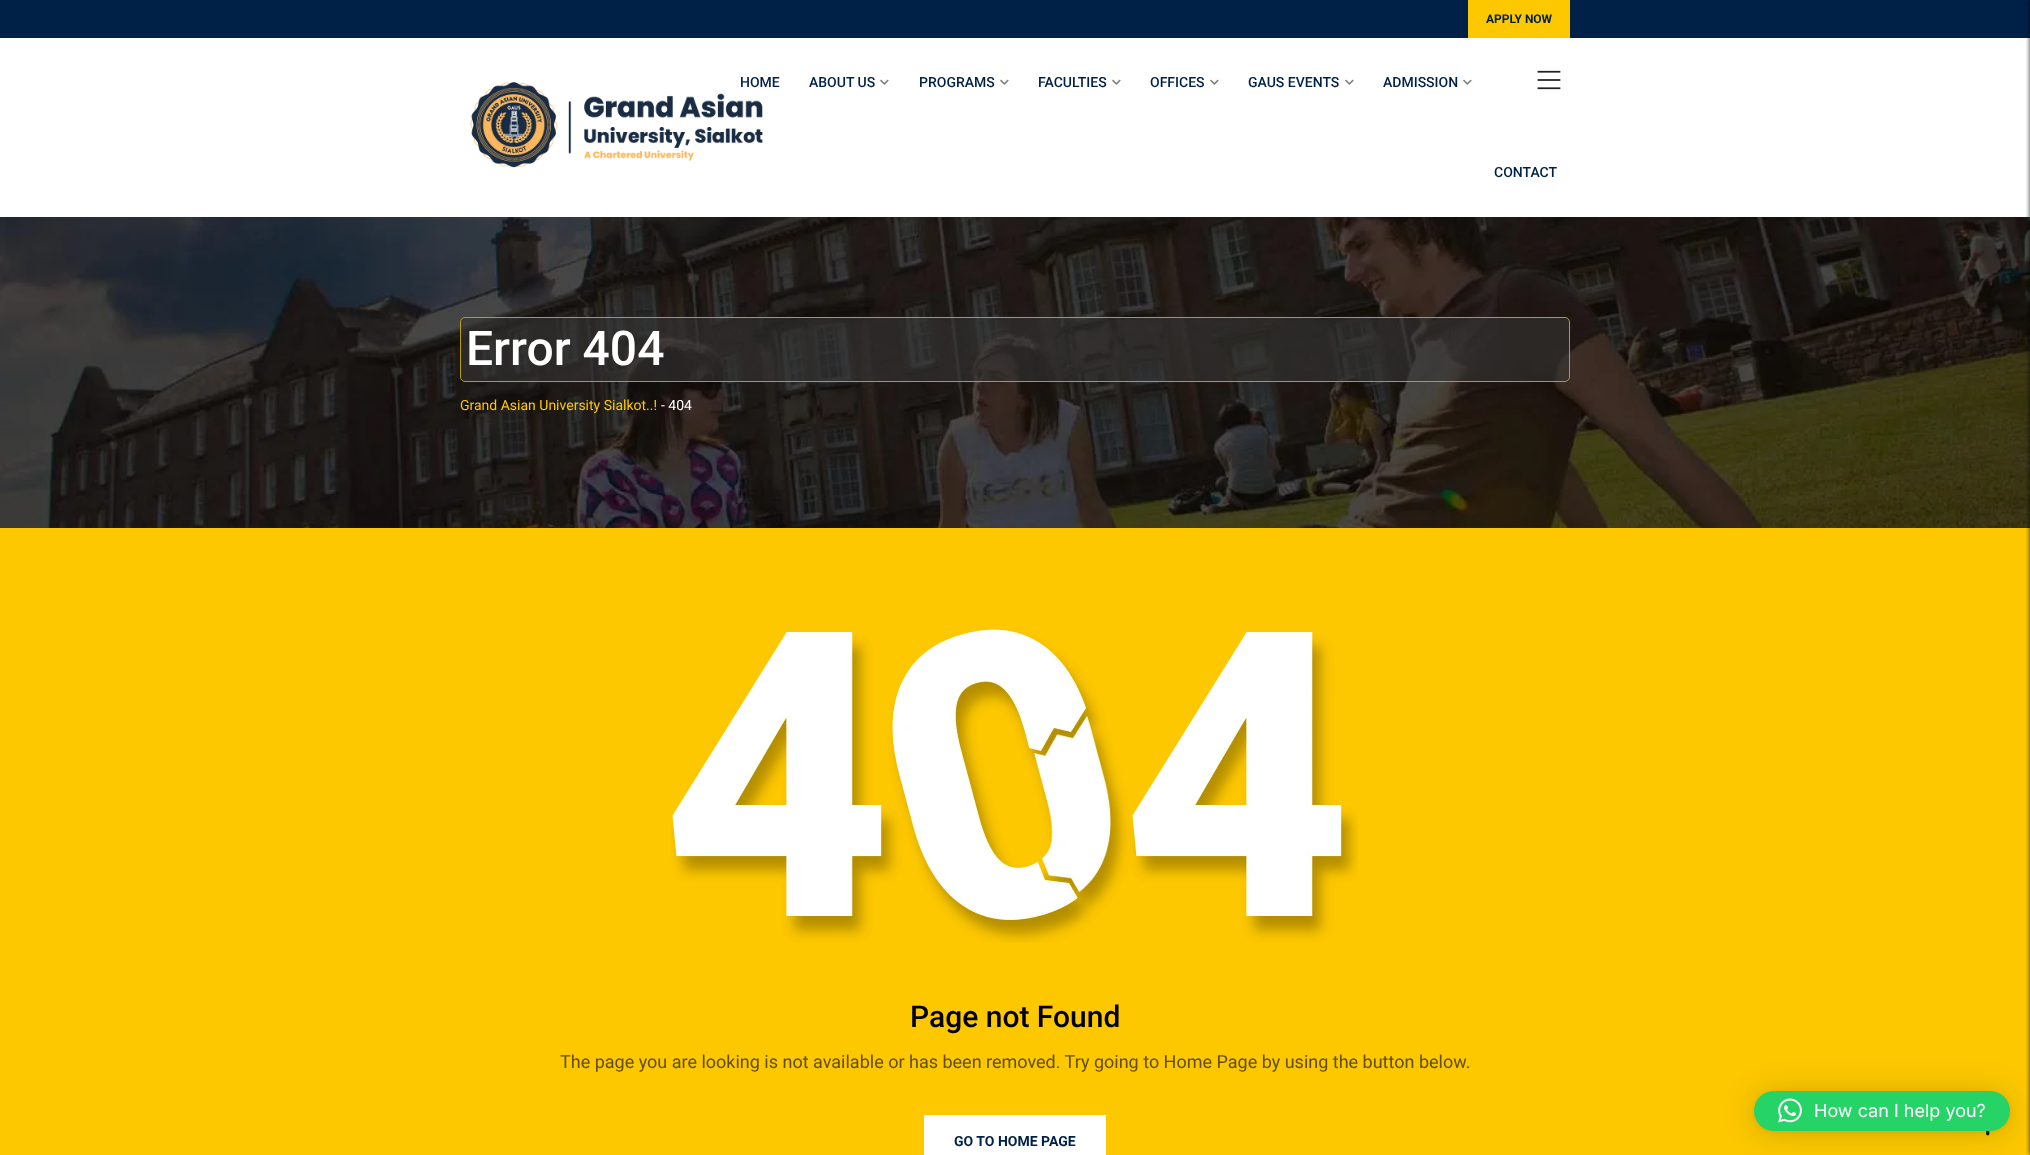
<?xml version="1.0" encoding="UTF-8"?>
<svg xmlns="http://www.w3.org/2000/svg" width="2030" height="1155">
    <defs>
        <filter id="blur1" x="-50%" y="-200%" width="200%" height="500%"><feGaussianBlur stdDeviation="2.5"/></filter>
        <filter id="blur2" x="-50%" y="-200%" width="200%" height="500%"><feGaussianBlur stdDeviation="16"/></filter>
        <filter id="blur3" x="-50%" y="-200%" width="200%" height="500%"><feGaussianBlur stdDeviation="3"/></filter>
    </defs>
    <rect width="100%" height="100%" fill="#FFFFFF"/>
    <rect x="0" y="0" width="2030" height="38" fill="#002147"/>
    <rect x="1468" y="0" width="102" height="38" fill="#FDC800"/>
    <text x="1486" y="23" font-family="Roboto" font-size="12" font-weight="700" fill="#002147">APPLY NOW</text>
    <image x="470" y="82" width="293" height="86" href="img_01.png"/>
    <text x="1543" y="69" transform="rotate(90 1543 69)" font-family="Liberation Serif" font-size="25" font-weight="700" letter-spacing="-1.75" fill="#222222">| | |</text>
    <image x="0" y="217" width="2030" height="311" href="img_03.png"/>
    <rect x="0" y="528" width="2030" height="627" fill="#FDC800"/>
    <rect x="2030" y="0" width="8" height="1155" fill="#000000" fill-opacity="0.8" filter="url(#blur1)"/>
    <text x="740" y="87" font-family="Roboto" font-size="14" font-weight="500" fill="#002147">HOME</text>
    <text x="809" y="87" font-family="Roboto" font-size="14" font-weight="500" fill="#002147">ABOUT US</text>
    <image x="880" y="79" width="9" height="6" href="img_02.png"/>
    <text x="919" y="87" font-family="Roboto" font-size="14" font-weight="500" fill="#002147">PROGRAMS</text>
    <image x="1000" y="79" width="9" height="6" href="img_02.png"/>
    <text x="1038" y="87" font-family="Roboto" font-size="14" font-weight="500" fill="#002147">FACULTIES</text>
    <image x="1112" y="79" width="9" height="6" href="img_02.png"/>
    <text x="1150" y="87" font-family="Roboto" font-size="14" font-weight="500" fill="#002147">OFFICES</text>
    <image x="1210" y="79" width="9" height="6" href="img_02.png"/>
    <text x="1248" y="87" font-family="Roboto" font-size="14" font-weight="500" fill="#002147">GAUS EVENTS</text>
    <image x="1345" y="79" width="9" height="6" href="img_02.png"/>
    <text x="1383" y="87" font-family="Roboto" font-size="14" font-weight="500" fill="#002147">ADMISSION</text>
    <image x="1463" y="79" width="9" height="6" href="img_02.png"/>
    <text x="1494" y="177" font-family="Roboto" font-size="14" font-weight="500" fill="#002147">CONTACT</text>
    <rect x="460.5" y="317.5" width="1109" height="64" rx="4.5" fill="#373737" fill-opacity="0.57" stroke="#B79C0D"/>
    <text x="466" y="365" font-family="Roboto" font-size="48" font-weight="500" fill="#FFFFFF">Error 404</text>
    <text x="460" y="410" font-family="Roboto" font-size="14" fill="#FDC800">Grand Asian University Sialkot..!</text>
    <text x="661" y="410" font-family="Roboto" font-size="14" fill="#FFFFFF">- 404</text>
    <image x="671" y="629" width="687" height="314" href="img_04.png"/>
    <text x="910" y="1027" font-family="Roboto" font-size="30" font-weight="500" fill="#000000">Page not Found</text>
    <text x="560" y="1068" font-family="Roboto" font-size="18" fill="#634E00">The page you are looking is not available or has been removed. Try going to Home Page by using the button below.</text>
    <rect x="924" y="1115" width="182" height="40" fill="#FFFFFF"/>
    <text x="954" y="1146" font-family="Roboto" font-size="14" font-weight="700" fill="#002147">GO TO HOME PAGE</text>
    <image x="1986" y="1131" width="4" height="5" href="img_06.png"/>
    <rect x="1754" y="1093" width="256" height="40" rx="20" fill="#000000" fill-opacity="0.16" filter="url(#blur2)"/>
    <rect x="1754" y="1092" width="256" height="40" rx="20" fill="#000000" fill-opacity="0.06" filter="url(#blur3)"/>
    <rect x="1754" y="1091" width="256" height="40" rx="20" fill="#25D366"/>
    <image x="1778" y="1098" width="24" height="25" href="img_05.png"/>
    <text x="1814" y="1117" font-family="Inter" font-size="18" fill="#FFFFFF">How can I help you?</text>
</svg>
